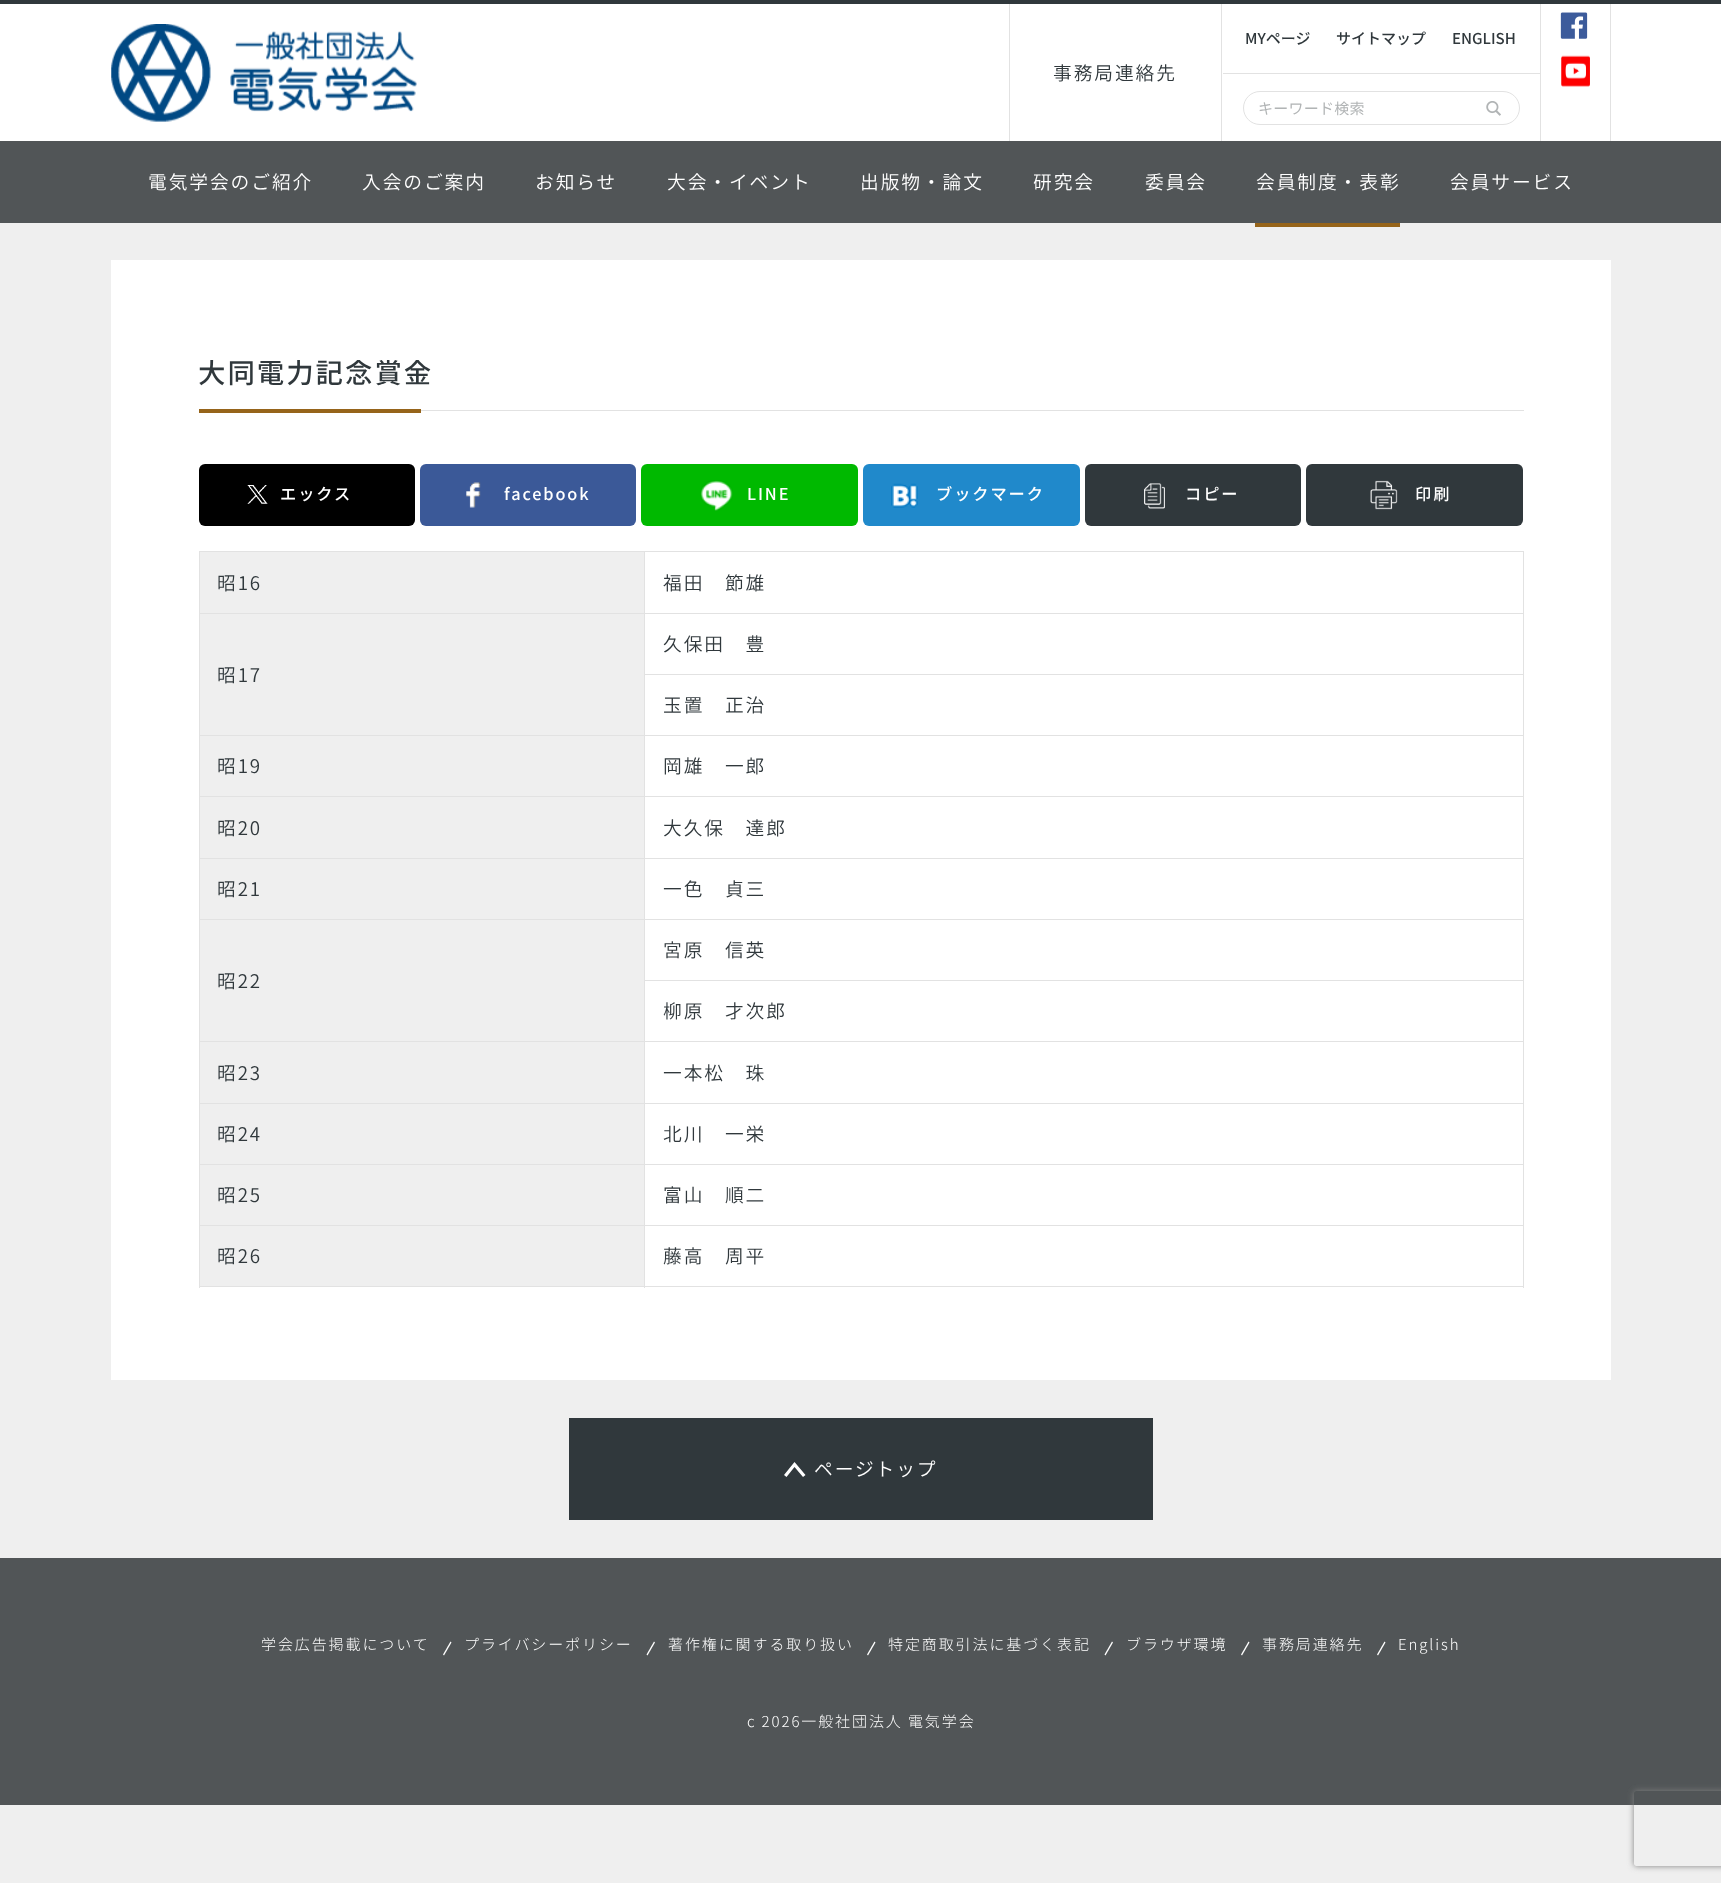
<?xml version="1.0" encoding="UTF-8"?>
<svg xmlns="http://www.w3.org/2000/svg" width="1721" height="1883">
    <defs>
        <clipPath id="clip1"><path d="M 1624 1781 H 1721 V 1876 H 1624 Z M 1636.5 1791 H 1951.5 C 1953 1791 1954 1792 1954 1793.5 V 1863.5 C 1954 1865 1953 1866 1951.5 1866 H 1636.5 C 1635 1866 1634 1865 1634 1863.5 V 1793.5 C 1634 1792 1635 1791 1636.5 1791 Z" clip-rule="evenodd"/></clipPath>
        <filter id="blur1" x="-50%" y="-200%" width="200%" height="500%"><feGaussianBlur stdDeviation="3"/></filter>
    </defs>
    <rect width="100%" height="100%" fill="#EFEFEF"/>
    <rect x="0" y="4" width="1721" height="137" fill="#FFFFFF"/>
    <rect x="0" y="0" width="1721" height="4" fill="#30383C"/>
    <image x="111" y="24" width="306" height="98" href="img_01.png"/>
    <rect x="1221" y="4" width="1" height="137" fill="#E2E2E2"/>
    <rect x="1009" y="4" width="1" height="137" fill="#E2E2E2"/>
    <text x="1053" y="80" font-family="Noto Sans JP" font-size="18.75" font-weight="300" letter-spacing="1.9" fill="#30383C">事務局連絡先</text>
    <rect x="1540" y="4" width="1" height="137" fill="#E2E2E2"/>
    <text x="1245" y="44" font-family="Noto Sans JP" font-size="15" font-weight="500" fill="#30383C">MYページ</text>
    <text x="1336" y="44" font-family="Noto Sans JP" font-size="15" font-weight="500" fill="#30383C">サイトマップ</text>
    <text x="1452" y="44" font-family="Noto Sans JP" font-size="15" font-weight="500" fill="#30383C">ENGLISH</text>
    <rect x="1223" y="73" width="317" height="1" fill="#E2E2E2"/>
    <rect x="1243.5" y="91.5" width="276" height="33" rx="16.5" fill="none" stroke="#E2E2E2"/>
    <text x="1258" y="114" font-family="Noto Sans JP" font-size="15" letter-spacing="0.25" fill="#B1B4B5">キーワード検索</text>
    <image x="1486" y="101" width="15" height="15" href="img_02.png"/>
    <rect x="1610" y="4" width="1" height="137" fill="#E2E2E2"/>
    <image x="1560" y="12" width="28" height="27" href="img_03.png"/>
    <image x="1561" y="55" width="29" height="32" href="img_04.png"/>
    <rect x="0" y="141" width="1721" height="82" fill="#515557"/>
    <text x="148" y="189" font-family="Noto Sans JP" font-size="18.75" font-weight="300" letter-spacing="1.9" fill="#FFFFFF">電気学会のご紹介</text>
    <text x="362" y="189" font-family="Noto Sans JP" font-size="18.75" font-weight="300" letter-spacing="1.9" fill="#FFFFFF">入会のご案内</text>
    <text x="535" y="189" font-family="Noto Sans JP" font-size="18.75" font-weight="300" letter-spacing="1.9" fill="#FFFFFF">お知らせ</text>
    <text x="667" y="189" font-family="Noto Sans JP" font-size="18.75" font-weight="300" letter-spacing="1.9" fill="#FFFFFF">大会・イベント</text>
    <text x="860" y="189" font-family="Noto Sans JP" font-size="18.75" font-weight="300" letter-spacing="1.9" fill="#FFFFFF">出版物・論文</text>
    <text x="1033" y="189" font-family="Noto Sans JP" font-size="18.75" font-weight="300" letter-spacing="1.9" fill="#FFFFFF">研究会</text>
    <text x="1145" y="189" font-family="Noto Sans JP" font-size="18.75" font-weight="300" letter-spacing="1.9" fill="#FFFFFF">委員会</text>
    <text x="1256" y="189" font-family="Noto Sans JP" font-size="18.75" font-weight="300" letter-spacing="1.9" fill="#FFFFFF">会員制度・表彰</text>
    <rect x="1255" y="223" width="145" height="4" fill="#96641A"/>
    <text x="1450" y="189" font-family="Noto Sans JP" font-size="18.75" font-weight="300" letter-spacing="1.9" fill="#FFFFFF">会員サービス</text>
    <rect x="111" y="260" width="1500" height="1120" fill="#FFFFFF"/>
    <text x="198" y="383" font-family="Noto Sans JP" font-size="27.5" font-weight="500" letter-spacing="1.9" fill="#30383C">大同電力記念賞金</text>
    <rect x="199" y="409" width="222" height="4" fill="#96641A"/>
    <rect x="421" y="410" width="1103" height="1" fill="#E2E2E2"/>
    <rect x="199" y="464" width="216" height="62" rx="6" fill="#000000"/>
    <image x="247" y="485" width="21" height="19" href="img_05.png"/>
    <text x="280" y="500" font-family="Noto Sans JP" font-size="16.25" font-weight="500" letter-spacing="1.9" fill="#FFFFFF">エックス</text>
    <rect x="420" y="464" width="216" height="62" rx="6" fill="#3B5998"/>
    <image x="466" y="482" width="15" height="26" href="img_06.png"/>
    <text x="504" y="500" font-family="Noto Sans JP" font-size="16.25" font-weight="500" letter-spacing="1.9" fill="#FFFFFF">facebook</text>
    <rect x="641" y="464" width="217" height="62" rx="6" fill="#00B900"/>
    <image x="700" y="480" width="33" height="31" href="img_07.png"/>
    <text x="747" y="500" font-family="Noto Sans JP" font-size="16.25" font-weight="500" letter-spacing="1.9" fill="#FFFFFF">LINE</text>
    <rect x="863" y="464" width="217" height="62" rx="6" fill="#2089CB"/>
    <image x="891" y="483" width="27" height="25" href="img_08.png"/>
    <text x="936" y="500" font-family="Noto Sans JP" font-size="16.25" font-weight="500" letter-spacing="1.9" fill="#FFFFFF">ブックマーク</text>
    <rect x="1085" y="464" width="216" height="62" rx="6" fill="#30383C"/>
    <image x="1144" y="483" width="21" height="26" href="img_09.png"/>
    <text x="1185" y="500" font-family="Noto Sans JP" font-size="16.25" font-weight="500" letter-spacing="1.9" fill="#FFFFFF">コピー</text>
    <rect x="1306" y="464" width="217" height="62" rx="6" fill="#30383C"/>
    <image x="1370" y="480" width="28" height="30" href="img_10.png"/>
    <text x="1415" y="500" font-family="Noto Sans JP" font-size="16.25" font-weight="500" letter-spacing="1.9" fill="#FFFFFF">印刷</text>
    <rect x="200" y="552" width="444" height="61" fill="#EFEFEF"/>
    <rect x="644" y="551" width="880" height="1" fill="#E2E2E2"/>
    <rect x="644" y="613" width="880" height="1" fill="#E2E2E2"/>
    <rect x="644" y="674" width="880" height="1" fill="#E2E2E2"/>
    <rect x="644" y="735" width="880" height="1" fill="#E2E2E2"/>
    <rect x="644" y="796" width="880" height="1" fill="#E2E2E2"/>
    <rect x="644" y="858" width="880" height="1" fill="#E2E2E2"/>
    <rect x="644" y="919" width="880" height="1" fill="#E2E2E2"/>
    <rect x="644" y="980" width="880" height="1" fill="#E2E2E2"/>
    <rect x="644" y="1041" width="880" height="1" fill="#E2E2E2"/>
    <rect x="644" y="1103" width="880" height="1" fill="#E2E2E2"/>
    <rect x="644" y="1164" width="880" height="1" fill="#E2E2E2"/>
    <rect x="644" y="1225" width="880" height="1" fill="#E2E2E2"/>
    <rect x="1523" y="1225" width="1" height="63" fill="#E2E2E2"/>
    <rect x="644" y="1286" width="880" height="1" fill="#E2E2E2"/>
    <rect x="644" y="1225" width="1" height="63" fill="#E2E2E2"/>
    <rect x="199" y="1225" width="446" height="1" fill="#E2E2E2"/>
    <rect x="644" y="1164" width="1" height="62" fill="#E2E2E2"/>
    <rect x="199" y="1164" width="446" height="1" fill="#E2E2E2"/>
    <rect x="644" y="1103" width="1" height="62" fill="#E2E2E2"/>
    <rect x="199" y="1103" width="446" height="1" fill="#E2E2E2"/>
    <rect x="644" y="1041" width="1" height="63" fill="#E2E2E2"/>
    <rect x="199" y="1041" width="446" height="1" fill="#E2E2E2"/>
    <rect x="644" y="980" width="1" height="63" fill="#E2E2E2"/>
    <rect x="644" y="919" width="1" height="62" fill="#E2E2E2"/>
    <rect x="199" y="919" width="446" height="1" fill="#E2E2E2"/>
    <rect x="644" y="858" width="1" height="62" fill="#E2E2E2"/>
    <rect x="199" y="858" width="446" height="1" fill="#E2E2E2"/>
    <rect x="644" y="796" width="1" height="63" fill="#E2E2E2"/>
    <rect x="199" y="796" width="446" height="1" fill="#E2E2E2"/>
    <rect x="644" y="735" width="1" height="63" fill="#E2E2E2"/>
    <rect x="199" y="735" width="446" height="1" fill="#E2E2E2"/>
    <rect x="644" y="674" width="1" height="62" fill="#E2E2E2"/>
    <rect x="644" y="613" width="1" height="62" fill="#E2E2E2"/>
    <rect x="199" y="613" width="446" height="1" fill="#E2E2E2"/>
    <rect x="644" y="551" width="1" height="63" fill="#E2E2E2"/>
    <rect x="199" y="551" width="446" height="1" fill="#E2E2E2"/>
    <rect x="199" y="1286" width="446" height="1" fill="#E2E2E2"/>
    <rect x="199" y="1225" width="1" height="63" fill="#E2E2E2"/>
    <rect x="199" y="1164" width="1" height="62" fill="#E2E2E2"/>
    <rect x="199" y="1103" width="1" height="62" fill="#E2E2E2"/>
    <rect x="199" y="1041" width="1" height="63" fill="#E2E2E2"/>
    <rect x="199" y="919" width="1" height="124" fill="#E2E2E2"/>
    <rect x="199" y="858" width="1" height="62" fill="#E2E2E2"/>
    <rect x="199" y="796" width="1" height="63" fill="#E2E2E2"/>
    <rect x="199" y="735" width="1" height="63" fill="#E2E2E2"/>
    <rect x="199" y="613" width="1" height="123" fill="#E2E2E2"/>
    <rect x="199" y="551" width="1" height="63" fill="#E2E2E2"/>
    <text x="217" y="590" font-family="Noto Sans JP" font-size="18.75" font-weight="300" letter-spacing="1.9" fill="#30383C">昭16</text>
    <rect x="1523" y="1164" width="1" height="62" fill="#E2E2E2"/>
    <rect x="1523" y="1103" width="1" height="62" fill="#E2E2E2"/>
    <rect x="1523" y="1041" width="1" height="63" fill="#E2E2E2"/>
    <rect x="1523" y="980" width="1" height="63" fill="#E2E2E2"/>
    <rect x="1523" y="919" width="1" height="62" fill="#E2E2E2"/>
    <rect x="1523" y="858" width="1" height="62" fill="#E2E2E2"/>
    <rect x="1523" y="796" width="1" height="63" fill="#E2E2E2"/>
    <rect x="1523" y="735" width="1" height="63" fill="#E2E2E2"/>
    <rect x="1523" y="674" width="1" height="62" fill="#E2E2E2"/>
    <rect x="1523" y="613" width="1" height="62" fill="#E2E2E2"/>
    <rect x="1523" y="551" width="1" height="63" fill="#E2E2E2"/>
    <text x="663" y="590" font-family="Noto Sans JP" font-size="18.75" font-weight="300" letter-spacing="1.9" fill="#30383C">福田　節雄</text>
    <text x="663" y="651" font-family="Noto Sans JP" font-size="18.75" font-weight="300" letter-spacing="1.9" fill="#30383C">久保田　豊</text>
    <rect x="200" y="614" width="444" height="121" fill="#EFEFEF"/>
    <text x="217" y="682" font-family="Noto Sans JP" font-size="18.75" font-weight="300" letter-spacing="1.9" fill="#30383C">昭17</text>
    <text x="663" y="712" font-family="Noto Sans JP" font-size="18.75" font-weight="300" letter-spacing="1.9" fill="#30383C">玉置　正治</text>
    <rect x="200" y="736" width="444" height="60" fill="#EFEFEF"/>
    <text x="217" y="773" font-family="Noto Sans JP" font-size="18.75" font-weight="300" letter-spacing="1.9" fill="#30383C">昭19</text>
    <text x="663" y="773" font-family="Noto Sans JP" font-size="18.75" font-weight="300" letter-spacing="1.9" fill="#30383C">岡雄　一郎</text>
    <rect x="200" y="797" width="444" height="61" fill="#EFEFEF"/>
    <text x="217" y="835" font-family="Noto Sans JP" font-size="18.75" font-weight="300" letter-spacing="1.9" fill="#30383C">昭20</text>
    <text x="663" y="835" font-family="Noto Sans JP" font-size="18.75" font-weight="300" letter-spacing="1.9" fill="#30383C">大久保　達郎</text>
    <rect x="200" y="859" width="444" height="60" fill="#EFEFEF"/>
    <text x="217" y="896" font-family="Noto Sans JP" font-size="18.75" font-weight="300" letter-spacing="1.9" fill="#30383C">昭21</text>
    <text x="663" y="896" font-family="Noto Sans JP" font-size="18.75" font-weight="300" letter-spacing="1.9" fill="#30383C">一色　貞三</text>
    <text x="663" y="957" font-family="Noto Sans JP" font-size="18.75" font-weight="300" letter-spacing="1.9" fill="#30383C">宮原　信英</text>
    <rect x="200" y="920" width="444" height="121" fill="#EFEFEF"/>
    <text x="217" y="988" font-family="Noto Sans JP" font-size="18.75" font-weight="300" letter-spacing="1.9" fill="#30383C">昭22</text>
    <text x="663" y="1018" font-family="Noto Sans JP" font-size="18.75" font-weight="300" letter-spacing="1.9" fill="#30383C">柳原　才次郎</text>
    <rect x="200" y="1042" width="444" height="61" fill="#EFEFEF"/>
    <text x="217" y="1080" font-family="Noto Sans JP" font-size="18.75" font-weight="300" letter-spacing="1.9" fill="#30383C">昭23</text>
    <text x="663" y="1080" font-family="Noto Sans JP" font-size="18.75" font-weight="300" letter-spacing="1.9" fill="#30383C">一本松　珠</text>
    <rect x="200" y="1104" width="444" height="60" fill="#EFEFEF"/>
    <text x="217" y="1141" font-family="Noto Sans JP" font-size="18.75" font-weight="300" letter-spacing="1.9" fill="#30383C">昭24</text>
    <text x="663" y="1141" font-family="Noto Sans JP" font-size="18.75" font-weight="300" letter-spacing="1.9" fill="#30383C">北川　一栄</text>
    <rect x="200" y="1165" width="444" height="60" fill="#EFEFEF"/>
    <text x="217" y="1202" font-family="Noto Sans JP" font-size="18.75" font-weight="300" letter-spacing="1.9" fill="#30383C">昭25</text>
    <text x="663" y="1202" font-family="Noto Sans JP" font-size="18.75" font-weight="300" letter-spacing="1.9" fill="#30383C">富山　順二</text>
    <rect x="200" y="1226" width="444" height="60" fill="#EFEFEF"/>
    <text x="217" y="1263" font-family="Noto Sans JP" font-size="18.75" font-weight="300" letter-spacing="1.9" fill="#30383C">昭26</text>
    <text x="663" y="1263" font-family="Noto Sans JP" font-size="18.75" font-weight="300" letter-spacing="1.9" fill="#30383C">藤高　周平</text>
    <rect x="569" y="1418" width="584" height="102" fill="#30383C"/>
    <path d="M 794.5 1462 L 784 1475 L 786.5 1477 L 794.5 1467 L 803 1477 L 805.5 1475 Z" fill="#FFFFFF"/>
    <text x="814" y="1476" font-family="Noto Sans JP" font-size="18.75" font-weight="300" letter-spacing="1.9" fill="#FFFFFF">ページトップ</text>
    <rect x="0" y="1558" width="1721" height="247" fill="#515557"/>
    <text x="261" y="1650" font-family="'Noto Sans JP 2'" font-size="15" font-weight="300" letter-spacing="1.9" fill="#FFFFFF">学会広告掲載について</text>
    <path d="M 450.5 1641.5 L 451.5 1642.5 L 444 1655.5 L 443 1654.5 Z" fill="#FFFFFF"/>
    <text x="464" y="1650" font-family="'Noto Sans JP 2'" font-size="15" font-weight="300" letter-spacing="1.9" fill="#FFFFFF">プライバシーポリシー</text>
    <path d="M 654 1641.5 L 655 1642.5 L 647.5 1655.5 L 646.5 1654.5 Z" fill="#FFFFFF"/>
    <text x="668" y="1650" font-family="'Noto Sans JP 2'" font-size="15" font-weight="300" letter-spacing="1.9" fill="#FFFFFF">著作権に関する取り扱い</text>
    <path d="M 874.5 1641.5 L 875.5 1642.5 L 868 1655.5 L 867 1654.5 Z" fill="#FFFFFF"/>
    <text x="888" y="1650" font-family="'Noto Sans JP 2'" font-size="15" font-weight="300" letter-spacing="1.9" fill="#FFFFFF">特定商取引法に基づく表記</text>
    <path d="M 1112 1641.5 L 1113 1642.5 L 1105.5 1655.5 L 1104.5 1654.5 Z" fill="#FFFFFF"/>
    <text x="1126" y="1650" font-family="'Noto Sans JP 2'" font-size="15" font-weight="300" letter-spacing="1.9" fill="#FFFFFF">ブラウザ環境</text>
    <path d="M 1248.5 1641.5 L 1249.5 1642.5 L 1242 1655.5 L 1241 1654.5 Z" fill="#FFFFFF"/>
    <text x="1262" y="1650" font-family="'Noto Sans JP 2'" font-size="15" font-weight="300" letter-spacing="1.9" fill="#FFFFFF">事務局連絡先</text>
    <path d="M 1384.5 1641.5 L 1385.5 1642.5 L 1378 1655.5 L 1377 1654.5 Z" fill="#FFFFFF"/>
    <text x="1398" y="1650" font-family="'Noto Sans JP 2'" font-size="15" font-weight="300" letter-spacing="1.9" fill="#FFFFFF">English</text>
    <text x="747" y="1727" font-family="'Noto Sans JP 2'" font-size="15" font-weight="300" letter-spacing="1.9" fill="#FFFFFF">c 2026一般社団法人 電気学会</text>
    <g clip-path="url(#clip1)">
        <rect x="1634" y="1791" width="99" height="75" rx="2.5" fill="#808080" filter="url(#blur1)"/>
    </g>
</svg>
